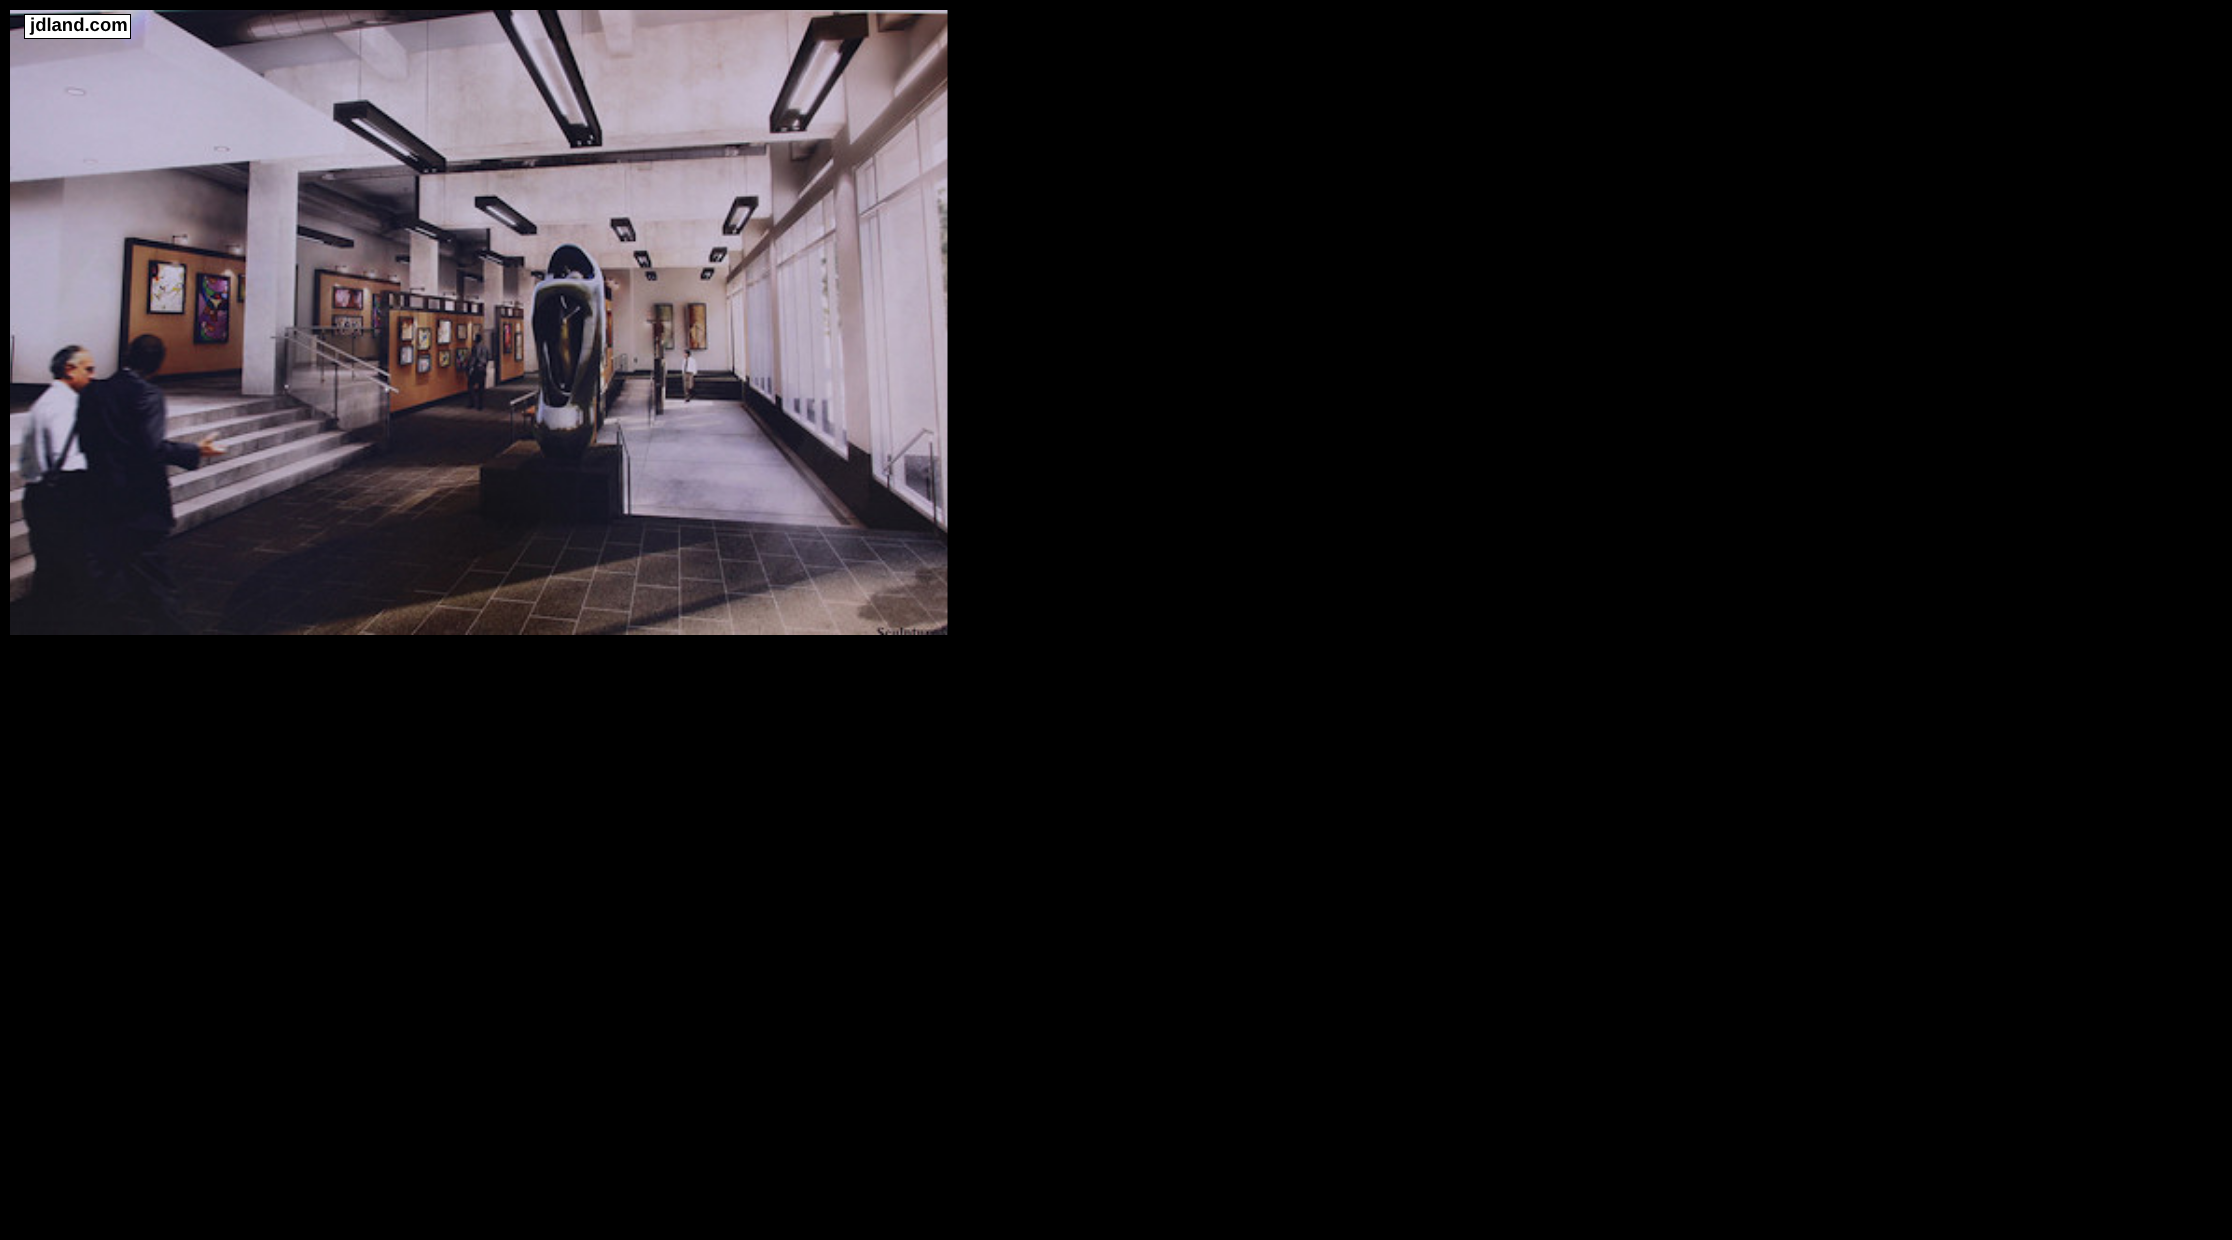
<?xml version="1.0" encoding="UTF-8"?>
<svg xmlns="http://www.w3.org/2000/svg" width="2232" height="1240">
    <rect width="100%" height="100%" fill="#000000"/>
    <image x="10" y="10" width="938" height="625" href="img_01.png"/>
    <rect x="24.5" y="14.5" width="106" height="24" fill="#FFFFFF" stroke="#000000"/>
    <text x="30" y="31" font-family="Liberation Sans" font-size="18.5" font-weight="700" fill="#000000">jdland.com</text>
</svg>
